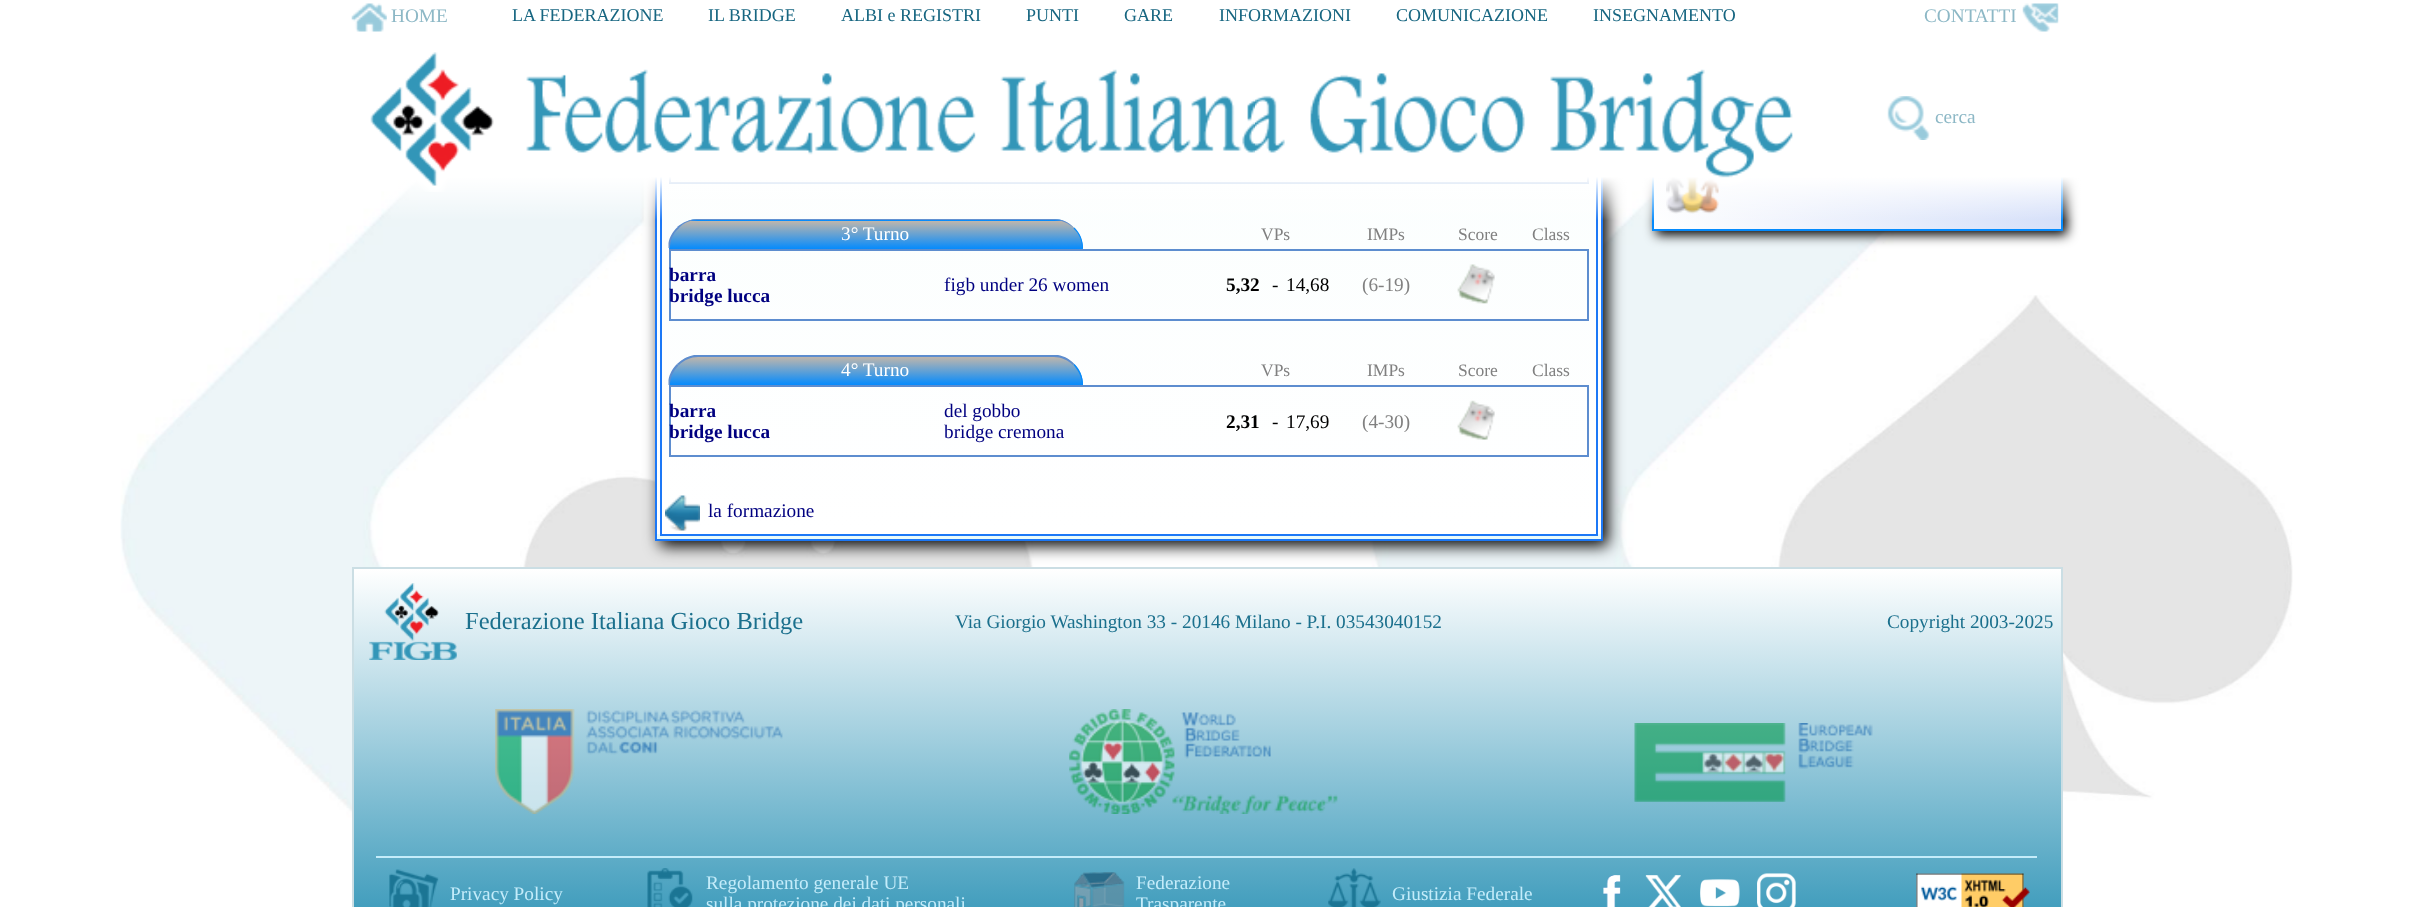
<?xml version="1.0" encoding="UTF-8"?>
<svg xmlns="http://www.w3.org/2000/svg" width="2413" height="907">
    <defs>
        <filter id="blur1" x="-50%" y="-200%" width="200%" height="500%"><feGaussianBlur stdDeviation="6"/></filter>
        <linearGradient id="g1" gradientUnits="userSpaceOnUse" x1="1673" y1="248" x2="2043" y2="-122"><stop offset="0" stop-color="#FFFFFF"/><stop offset="1" stop-color="#B5C7F4"/></linearGradient>
        <filter id="blur2" x="-50%" y="-200%" width="200%" height="500%"><feGaussianBlur stdDeviation="8"/></filter>
        <linearGradient id="g2" gradientUnits="userSpaceOnUse" x1="1129" y1="534" x2="1129" y2="-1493"><stop offset="0" stop-color="#FFFFFF"/><stop offset="1" stop-color="#EAFBFA"/></linearGradient>
        <linearGradient id="g3" gradientUnits="userSpaceOnUse" x1="1129" y1="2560" x2="1129" y2="534"><stop offset="0" stop-color="#FFFFFF"/><stop offset="1" stop-color="#EAFBFA"/></linearGradient>
        <clipPath id="clip1"><path d="M 699 219 H 1053 C 1069.5 219 1083 232.5 1083 249 H 669 C 669 232.5 682.5 219 699 219 Z"/></clipPath>
        <linearGradient id="g4" gradientUnits="userSpaceOnUse" x1="876" y1="221" x2="876" y2="193"><stop offset="0" stop-color="#058BFD"/><stop offset="1" stop-color="#BFB6AC"/></linearGradient>
        <linearGradient id="g5" gradientUnits="userSpaceOnUse" x1="876" y1="249" x2="876" y2="221"><stop offset="0" stop-color="#058BFD"/><stop offset="1" stop-color="#BFB6AC"/></linearGradient>
        <linearGradient id="g6" gradientUnits="userSpaceOnUse" x1="1207" y1="221" x2="1207" y2="0"><stop offset="0" stop-color="#FFFFFF" stop-opacity="0"/><stop offset="0.2" stop-color="#FFFFFF"/></linearGradient>
        <clipPath id="clip2"><path d="M 699 355 H 1053 C 1069.5 355 1083 368.5 1083 385 H 669 C 669 368.5 682.5 355 699 355 Z"/></clipPath>
        <linearGradient id="g7" gradientUnits="userSpaceOnUse" x1="876" y1="385" x2="876" y2="357"><stop offset="0" stop-color="#058BFD"/><stop offset="1" stop-color="#BFB6AC"/></linearGradient>
        <linearGradient id="g8" gradientUnits="userSpaceOnUse" x1="1208" y1="569" x2="1208" y2="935"><stop offset="0" stop-color="#FFFFFF"/><stop offset="1" stop-color="#3396B8"/></linearGradient>
    </defs>
    <rect width="100%" height="100%" fill="#FFFFFF"/>
    <image x="120" y="177" width="2173" height="730" href="img_01.png"/>
    <rect x="1656" y="-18" width="411" height="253" fill="#000000" filter="url(#blur1)"/>
    <rect x="1654" y="177" width="407" height="52" fill="url(#g1)"/>
    <rect x="1653" y="-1" width="409" height="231" fill="none" stroke="#058BFD" stroke-width="2"/>
    <image x="1666" y="177" width="53" height="37" href="img_06.png"/>
    <rect x="660" y="-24" width="948" height="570" fill="#000000" filter="url(#blur2)"/>
    <rect x="657" y="177" width="944" height="357" fill="url(#g2)"/>
    <rect x="655" y="534" width="948" height="5" fill="url(#g3)"/>
    <rect x="656" y="-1" width="946" height="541" fill="none" stroke="#1C78F6" stroke-width="2"/>
    <rect x="661" y="-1" width="936" height="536" fill="none" stroke="#1C78F6" stroke-width="2"/>
    <rect x="669" y="182" width="845" height="2" fill="#5D8DCF"/>
    <rect x="669" y="177" width="2" height="7" fill="#5D8DCF"/>
    <rect x="1587" y="177" width="2" height="7" fill="#5D8DCF"/>
    <rect x="1514" y="182" width="75" height="2" fill="#5D8DCF"/>
    <g clip-path="url(#clip1)">
        <rect x="688" y="219" width="376" height="2" fill="url(#g4)"/>
        <rect x="669" y="221" width="414" height="28" fill="url(#g5)"/>
    </g>
    <path d="M 698 219 H 1054 C 1062 219 1069 222 1074 228 C 1068 223 1062 220 1054 220 H 698 C 690 220 683 223 678 229 L 677 227 C 683 222 690 219 698 219 Z" fill="#5D8DCF"/>
    <rect x="384" y="0" width="1697" height="220" fill="url(#g6)"/>
    <image x="351" y="3" width="36" height="29" href="img_02.png"/>
    <text x="391" y="22" font-family="Liberation Serif" font-size="19.25" fill="#8DB8C6">HOME</text>
    <text x="512" y="21" font-family="Liberation Serif" font-size="18" fill="#176681">LA FEDERAZIONE</text>
    <text x="708" y="21" font-family="Liberation Serif" font-size="18" fill="#176681">IL BRIDGE</text>
    <text x="841" y="21" font-family="Liberation Serif" font-size="18" fill="#176681">ALBI e REGISTRI</text>
    <text x="1026" y="21" font-family="Liberation Serif" font-size="18" fill="#176681">PUNTI</text>
    <text x="1124" y="21" font-family="Liberation Serif" font-size="18" fill="#176681">GARE</text>
    <text x="1219" y="21" font-family="Liberation Serif" font-size="18" fill="#176681">INFORMAZIONI</text>
    <text x="1396" y="21" font-family="Liberation Serif" font-size="18" fill="#176681">COMUNICAZIONE</text>
    <text x="1593" y="21" font-family="Liberation Serif" font-size="18" fill="#176681">INSEGNAMENTO</text>
    <text x="1924" y="22" font-family="Liberation Serif" font-size="19.25" fill="#8DB8C6">CONTATTI</text>
    <image x="2022" y="3" width="37" height="29" href="img_03.png"/>
    <image x="370" y="52" width="1423" height="140" href="img_04.png"/>
    <image x="1887" y="96" width="43" height="44" href="img_05.png"/>
    <text x="1935" y="123" font-family="Liberation Serif" font-size="19.25" fill="#8DB8C6">cerca</text>
    <rect x="669" y="249" width="920" height="2" fill="#5D8DCF"/>
    <path d="M 1073.5 228.5 C 1079 233.5 1082 240.5 1082 248 H 1083 C 1083 240 1080 233 1074.5 227.5 Z" fill="#058BFD"/>
    <path d="M 677 227.5 L 678.5 228.5 C 673 233.5 670 240.5 670 248 H 668.5 V 243 C 669.5 237 673 231.5 677 227.5 Z" fill="#5D8DCF"/>
    <text x="841" y="240" font-family="Liberation Serif" font-size="19.25" fill="#FFFFFF">3° Turno</text>
    <text x="1261" y="240" font-family="Liberation Serif" font-size="17.5" fill="#808080">VPs</text>
    <text x="1367" y="240" font-family="Liberation Serif" font-size="17.5" fill="#808080">IMPs</text>
    <text x="1458" y="240" font-family="Liberation Serif" font-size="17.5" fill="#808080">Score</text>
    <text x="1532" y="240" font-family="Liberation Serif" font-size="17.5" fill="#808080">Class</text>
    <rect x="669" y="319" width="845" height="2" fill="#5D8DCF"/>
    <rect x="669" y="250" width="2" height="70" fill="#5D8DCF"/>
    <text font-family="Liberation Serif" font-size="19.25" font-weight="700" fill="#000080">
        <tspan x="669" y="281">barra</tspan>
        <tspan x="669" y="302">bridge lucca</tspan>
    </text>
    <text x="944" y="291" font-family="Liberation Serif" font-size="19.25" fill="#000080">figb under 26 women</text>
    <text x="1226" y="291" font-family="Liberation Serif" font-size="19.25" font-weight="700" fill="#000000">5,32</text>
    <text x="1272" y="291" font-family="Liberation Serif" font-size="19.25" fill="#000000">-</text>
    <text x="1286" y="291" font-family="Liberation Serif" font-size="19.25" fill="#000000">14,68</text>
    <text x="1362" y="291" font-family="Liberation Serif" font-size="19.25" fill="#808080">(6-19)</text>
    <image x="1457" y="264" width="38" height="40" href="img_07.png"/>
    <rect x="1587" y="250" width="2" height="70" fill="#5D8DCF"/>
    <rect x="1514" y="319" width="75" height="2" fill="#5D8DCF"/>
    <rect x="669" y="385" width="920" height="2" fill="#5D8DCF"/>
    <g clip-path="url(#clip2)">
        <rect x="669" y="357" width="414" height="28" fill="url(#g7)"/>
    </g>
    <path d="M 698 357 C 691 357 684 360 679 365 L 677 364 C 682 359 688 356 694 355 H 1058 C 1064 356 1070 359 1074 364 L 1073 365 C 1068 360 1061 357 1054 357 Z" fill="#5D8DCF"/>
    <path d="M 1082 385 H 1083 C 1083 377 1080 369.5 1074.5 364 L 1073.5 365 C 1078.5 370.5 1082 377.5 1082 385 Z" fill="#058BFD"/>
    <path d="M 668.5 385 V 380 C 669.5 373.5 673 368 677 364 L 678.5 365.5 C 673.5 370.5 670 377.5 670 385 Z" fill="#5D8DCF"/>
    <text x="841" y="376" font-family="Liberation Serif" font-size="19.25" fill="#FFFFFF">4° Turno</text>
    <text x="1261" y="376" font-family="Liberation Serif" font-size="17.5" fill="#808080">VPs</text>
    <text x="1367" y="376" font-family="Liberation Serif" font-size="17.5" fill="#808080">IMPs</text>
    <text x="1458" y="376" font-family="Liberation Serif" font-size="17.5" fill="#808080">Score</text>
    <text x="1532" y="376" font-family="Liberation Serif" font-size="17.5" fill="#808080">Class</text>
    <rect x="669" y="455" width="845" height="2" fill="#5D8DCF"/>
    <rect x="669" y="387" width="2" height="70" fill="#5D8DCF"/>
    <text font-family="Liberation Serif" font-size="19.25" font-weight="700" fill="#000080">
        <tspan x="669" y="417">barra</tspan>
        <tspan x="669" y="438">bridge lucca</tspan>
    </text>
    <text font-family="Liberation Serif" font-size="19.25" fill="#000080">
        <tspan x="944" y="417">del gobbo</tspan>
        <tspan x="944" y="438">bridge cremona</tspan>
    </text>
    <text x="1226" y="428" font-family="Liberation Serif" font-size="19.25" font-weight="700" fill="#000000">2,31</text>
    <text x="1272" y="428" font-family="Liberation Serif" font-size="19.25" fill="#000000">-</text>
    <text x="1286" y="428" font-family="Liberation Serif" font-size="19.25" fill="#000000">17,69</text>
    <text x="1362" y="428" font-family="Liberation Serif" font-size="19.25" fill="#808080">(4-30)</text>
    <image x="1457" y="400" width="38" height="40" href="img_08.png"/>
    <rect x="1587" y="387" width="2" height="70" fill="#5D8DCF"/>
    <rect x="1514" y="455" width="75" height="2" fill="#5D8DCF"/>
    <image x="665" y="495" width="35" height="36" href="img_09.png"/>
    <text x="708" y="517" font-family="Liberation Serif" font-size="19.25" fill="#000080">la formazione</text>
    <rect x="354" y="569" width="1707" height="338" fill="url(#g8)"/>
    <rect x="353" y="568" width="1709" height="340" fill="none" stroke="#CBDEE4" stroke-width="2"/>
    <image x="369" y="583" width="88" height="77" href="img_10.png"/>
    <text x="465" y="629" font-family="Liberation Serif" font-size="24.5" fill="#1B708D">Federazione Italiana Gioco Bridge</text>
    <text x="955" y="628" font-family="Liberation Serif" font-size="19.25" fill="#1B708D">Via Giorgio Washington 33 - 20146 Milano - P.I. 03543040152</text>
    <text x="1887" y="628" font-family="Liberation Serif" font-size="19.25" fill="#1B708D">Copyright 2003-2025</text>
    <image x="495" y="709" width="288" height="105" href="img_11.png"/>
    <image x="1069" y="709" width="269" height="105" href="img_12.png"/>
    <image x="1634" y="723" width="239" height="79" href="img_13.png"/>
    <rect x="376" y="856" width="1661" height="2" fill="#C4ECFA"/>
    <image x="389" y="869" width="50" height="38" href="img_14.png"/>
    <text x="450" y="900" font-family="Liberation Serif" font-size="19.25" fill="#C4ECFA">Privacy Policy</text>
    <image x="647" y="868" width="46" height="39" href="img_15.png"/>
    <text font-family="Liberation Serif" font-size="19.25" fill="#C4ECFA">
        <tspan x="706" y="889">Regolamento generale UE</tspan>
        <tspan x="706" y="910">sulla protezione dei dati personali</tspan>
    </text>
    <image x="1074" y="872" width="51" height="35" href="img_16.png"/>
    <text font-family="Liberation Serif" font-size="19.25" fill="#C4ECFA">
        <tspan x="1136" y="889">Federazione</tspan>
        <tspan x="1136" y="910">Trasparente</tspan>
    </text>
    <image x="1328" y="868" width="53" height="39" href="img_17.png"/>
    <text x="1392" y="900" font-family="Liberation Serif" font-size="19.25" fill="#C4ECFA">Giustizia Federale</text>
    <image x="1603" y="875" width="18" height="32" href="img_18.png"/>
    <image x="1645" y="875" width="36" height="32" href="img_19.png"/>
    <image x="1700" y="879" width="40" height="28" href="img_20.png"/>
    <image x="1757" y="873" width="39" height="34" href="img_21.png"/>
    <image x="1916" y="873" width="114" height="34" href="img_22.png"/>
</svg>
